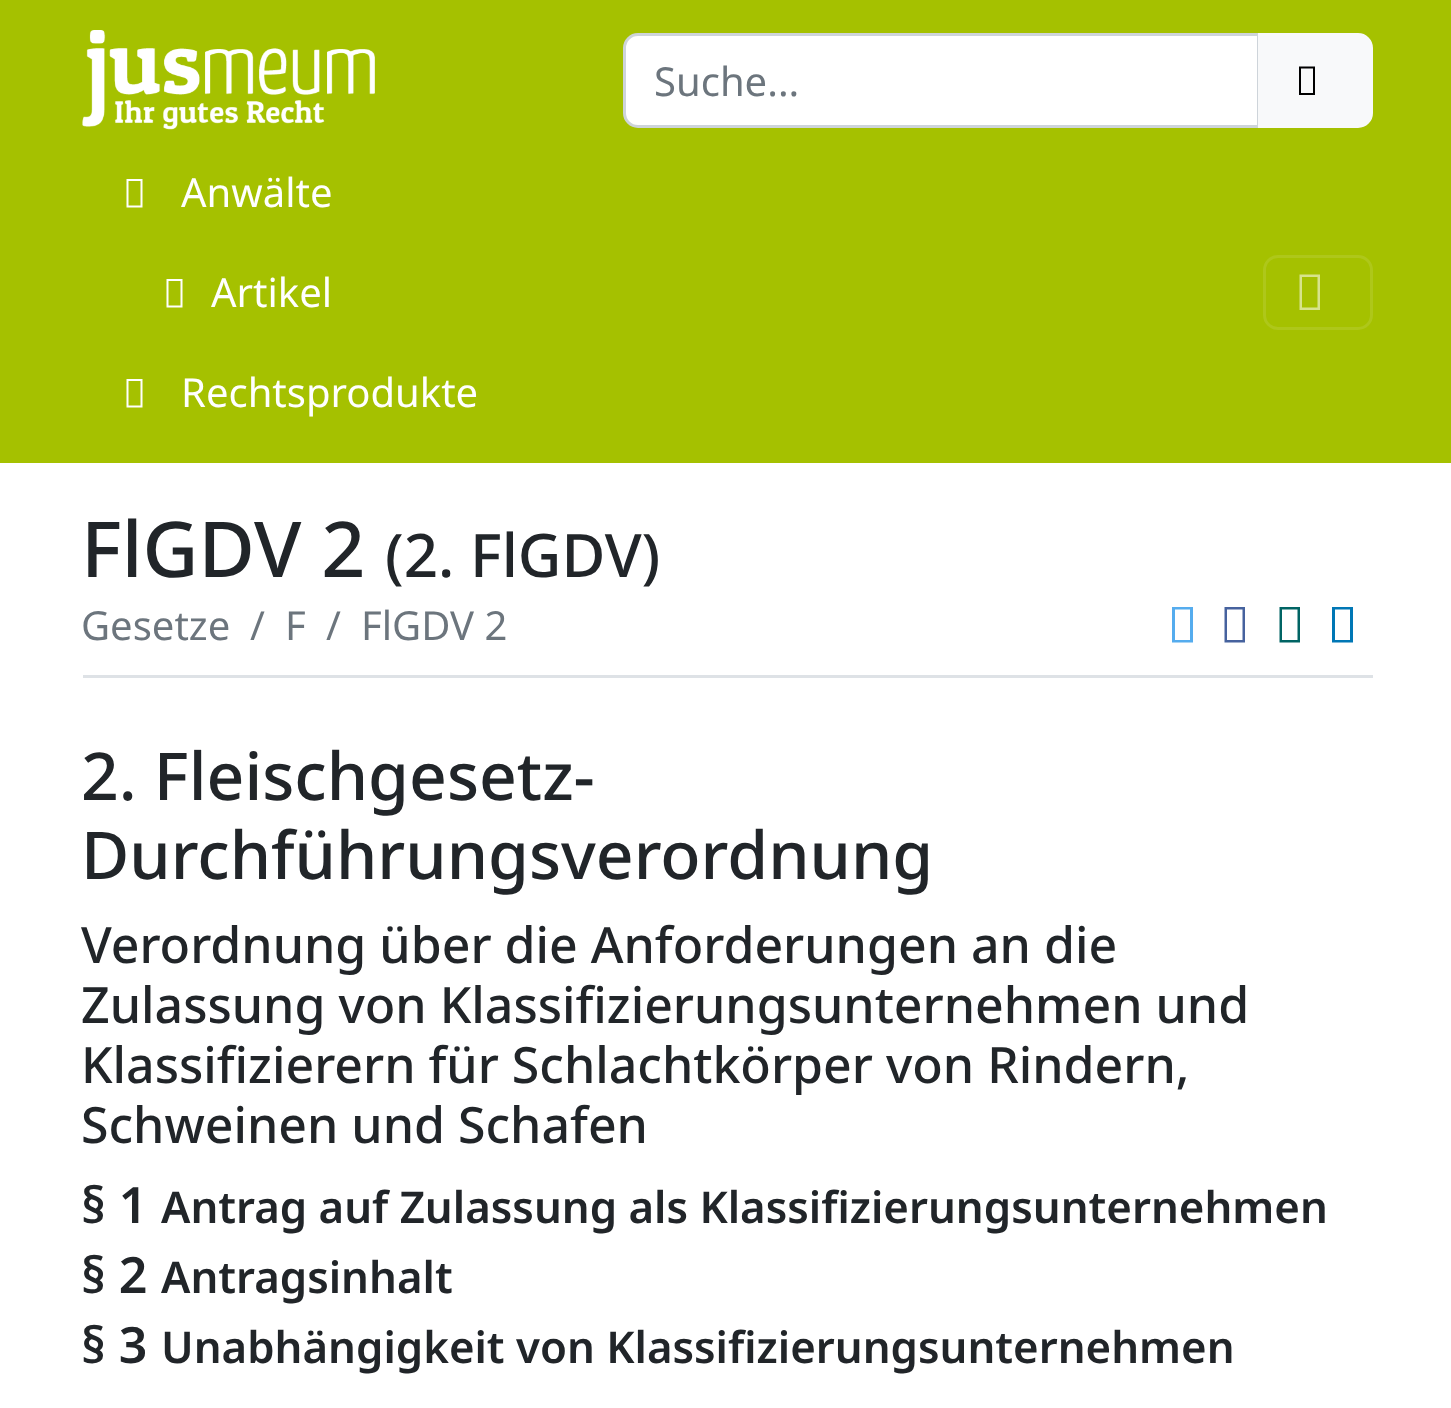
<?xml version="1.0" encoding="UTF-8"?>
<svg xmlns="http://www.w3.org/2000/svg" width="1451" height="1408">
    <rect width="100%" height="100%" fill="#FFFFFF"/>
    <rect x="0" y="0" width="1451" height="463" fill="#A5C100"/>
    <image x="82" y="30" width="293" height="100" href="img_01.png"/>
    <path d="M 638 34.5 H 1258.5 V 126.5 H 638 C 630.5 126.5 624.5 120.5 624.5 113 V 48 C 624.5 40.5 630.5 34.5 638 34.5 Z" fill="#FFFFFF" stroke="#CED4DA" stroke-width="3"/>
    <text x="654" y="96" font-family="Noto Sans" font-size="40" fill="#6C757D">Suche...</text>
    <path d="M 1259.5 34.5 H 1358 C 1365.5 34.5 1371.5 40.5 1371.5 48 V 113 C 1371.5 120.5 1365.5 126.5 1358 126.5 H 1259.5 Z" fill="#F8F9FA" stroke="#F8F9FA" stroke-width="3"/>
    <path d="M 1299 95 V 66.5 H 1315 V 95 Z M 1301 93 H 1313 V 68.5 H 1301 Z" fill="#000000"/>
    <path d="M 126.5 207.5 V 179 H 142.5 V 207.5 Z M 128.5 205.5 H 140.5 V 181 H 128.5 Z" fill="#FFFFFF"/>
    <text x="181" y="207" font-family="Noto Sans" font-size="40" fill="#FFFFFF">Anwälte</text>
    <path d="M 166.5 307.5 V 279 H 182.5 V 307.5 Z M 168.5 305.5 H 180.5 V 281 H 168.5 Z" fill="#FFFFFF"/>
    <text x="211" y="307" font-family="Noto Sans" font-size="40" fill="#FFFFFF">Artikel</text>
    <path d="M 126.5 407.5 V 379 H 142.5 V 407.5 Z M 128.5 405.5 H 140.5 V 381 H 128.5 Z" fill="#FFFFFF"/>
    <text x="181" y="407" font-family="Noto Sans" font-size="40" fill="#FFFFFF">Rechtsprodukte</text>
    <rect x="1264.5" y="256.5" width="107" height="72" rx="13.5" fill="none" stroke="#AEC71A" stroke-width="3"/>
    <path d="M 1299.5 310 V 274.5 H 1320 V 310 Z M 1302 307.5 H 1317.5 V 277 H 1302 Z" fill="#D7E38C"/>
    <text x="81" y="577" font-family="Noto Sans" font-size="77" font-weight="500" fill="#212529">FlGDV 2</text>
    <text x="385" y="577" font-family="Noto Sans" font-size="60" font-weight="500" fill="#212529">(2. FlGDV)</text>
    <rect x="83" y="675" width="1290" height="3" fill="#DEE2E6"/>
    <text x="81" y="640" font-family="Noto Sans" font-size="40" fill="#6C757D">Gesetze</text>
    <text x="250" y="640" font-family="Noto Sans" font-size="40" fill="#6C757D">/</text>
    <text x="285" y="640" font-family="Noto Sans" font-size="40" fill="#6C757D">F</text>
    <text x="326" y="640" font-family="Noto Sans" font-size="40" fill="#6C757D">/</text>
    <text x="361" y="640" font-family="Noto Sans" font-size="40" fill="#6C757D">FlGDV 2</text>
    <path d="M 1172 642.5 V 607 H 1193 V 642.5 Z M 1175 640 H 1190 V 609.5 H 1175 Z" fill="#55ACEE"/>
    <path d="M 1224.5 642.5 V 607 H 1245 V 642.5 Z M 1227 640 H 1242.5 V 609.5 H 1227 Z" fill="#46629E"/>
    <path d="M 1279.5 642.5 V 607 H 1300 V 642.5 Z M 1282 640 H 1297.5 V 609.5 H 1282 Z" fill="#006464"/>
    <path d="M 1332 642.5 V 607 H 1353 V 642.5 Z M 1335 640 H 1350 V 609.5 H 1335 Z" fill="#0077B5"/>
    <text font-family="Noto Sans" font-size="66" font-weight="500" fill="#212529">
        <tspan x="81" y="800">2. Fleischgesetz-</tspan>
        <tspan x="81" y="879">Durchführungsverordnung</tspan>
    </text>
    <text font-family="Noto Sans" font-size="50" font-weight="500" fill="#212529">
        <tspan x="81" y="963">Verordnung über die Anforderungen an die</tspan>
        <tspan x="81" y="1023">Zulassung von Klassifizierungsunternehmen und</tspan>
        <tspan x="81" y="1083">Klassifizierern für Schlachtkörper von Rindern,</tspan>
        <tspan x="81" y="1143">Schweinen und Schafen</tspan>
    </text>
    <text x="81" y="1223" font-family="Noto Sans" font-size="50" font-weight="600" fill="#212529">§ 1</text>
    <text x="161" y="1223" font-family="Noto Sans" font-size="43.75" font-weight="600" fill="#212529">Antrag auf Zulassung als Klassifizierungsunternehmen</text>
    <text x="81" y="1293" font-family="Noto Sans" font-size="50" font-weight="600" fill="#212529">§ 2</text>
    <text x="161" y="1293" font-family="Noto Sans" font-size="43.75" font-weight="600" fill="#212529">Antragsinhalt</text>
    <text x="81" y="1363" font-family="Noto Sans" font-size="50" font-weight="600" fill="#212529">§ 3</text>
    <text x="161" y="1363" font-family="Noto Sans" font-size="43.75" font-weight="600" fill="#212529">Unabhängigkeit von Klassifizierungsunternehmen</text>
</svg>
